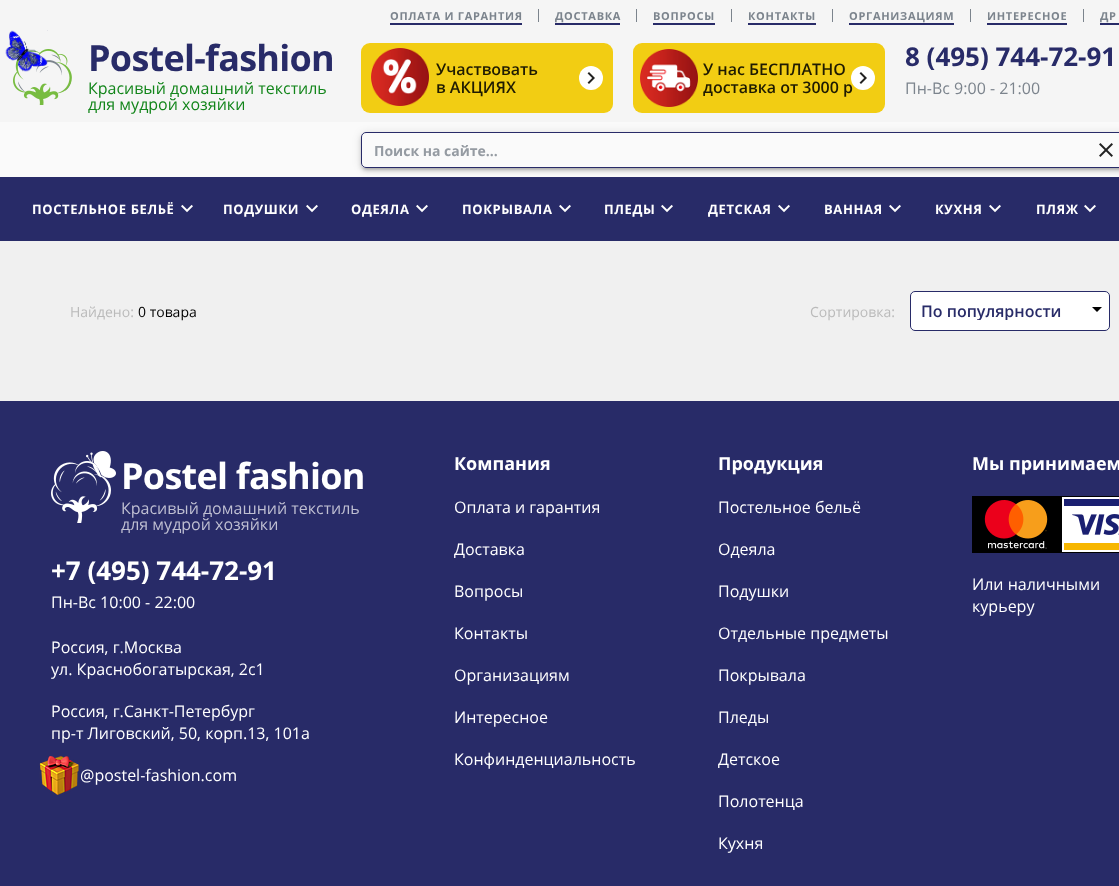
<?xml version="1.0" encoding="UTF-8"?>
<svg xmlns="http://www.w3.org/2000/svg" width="1119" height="886">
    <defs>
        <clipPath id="clip1"><path d="M 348 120 H 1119 V 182 H 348 Z M 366 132 H 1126 C 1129 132 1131 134 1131 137 V 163 C 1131 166 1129 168 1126 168 H 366 C 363 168 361 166 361 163 V 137 C 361 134 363 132 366 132 Z" clip-rule="evenodd"/></clipPath>
        <filter id="blur1" x="-50%" y="-200%" width="200%" height="500%"><feGaussianBlur stdDeviation="4"/></filter>
        <clipPath id="clip2"><path d="M 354 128 H 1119 V 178 H 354 Z M 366 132 H 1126 C 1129 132 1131 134 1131 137 V 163 C 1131 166 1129 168 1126 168 H 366 C 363 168 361 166 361 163 V 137 C 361 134 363 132 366 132 Z" clip-rule="evenodd"/></clipPath>
        <filter id="blur2" x="-50%" y="-200%" width="200%" height="500%"><feGaussianBlur stdDeviation="2"/></filter>
        <clipPath id="clip3"><path d="M 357 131 H 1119 V 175 H 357 Z M 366 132 H 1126 C 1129 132 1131 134 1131 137 V 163 C 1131 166 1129 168 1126 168 H 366 C 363 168 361 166 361 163 V 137 C 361 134 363 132 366 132 Z" clip-rule="evenodd"/></clipPath>
        <filter id="blur3" x="-50%" y="-200%" width="200%" height="500%"><feGaussianBlur stdDeviation="1.5"/></filter>
        <clipPath id="clip4"><rect x="921" y="302" width="168" height="18"/></clipPath>
    </defs>
    <rect width="100%" height="100%" fill="#FAFAFA"/>
    <rect x="0" y="0" width="1119" height="122" fill="#F5F5F5"/>
    <image x="13" y="49" width="59" height="56" href="img_02.png"/>
    <image x="5" y="30" width="43" height="42" href="img_01.png"/>
    <text x="88" y="71" font-family="Open Sans" font-size="36" font-weight="700" letter-spacing="-0.75" fill="#282B68">Postel-fashion</text>
    <text font-family="Open Sans" font-size="16" fill="#12851A">
        <tspan x="88" y="94">Красивый домашний текстиль</tspan>
        <tspan x="88" y="110">для мудрой хозяйки</tspan>
    </text>
    <rect x="538" y="9" width="1" height="13" fill="#7C848D"/>
    <text x="390" y="20" font-family="Open Sans" font-size="11" font-weight="700" letter-spacing="0.7" fill="#7C848D">ОПЛАТА И ГАРАНТИЯ</text>
    <rect x="390" y="23" width="132" height="2" fill="#282B68"/>
    <rect x="636" y="9" width="1" height="13" fill="#7C848D"/>
    <text x="555" y="20" font-family="Open Sans" font-size="11" font-weight="700" letter-spacing="0.7" fill="#7C848D">ДОСТАВКА</text>
    <rect x="555" y="23" width="65" height="2" fill="#282B68"/>
    <rect x="731" y="9" width="1" height="13" fill="#7C848D"/>
    <text x="653" y="20" font-family="Open Sans" font-size="11" font-weight="700" letter-spacing="0.7" fill="#7C848D">ВОПРОСЫ</text>
    <rect x="653" y="23" width="62" height="2" fill="#282B68"/>
    <rect x="832" y="9" width="1" height="13" fill="#7C848D"/>
    <text x="748" y="20" font-family="Open Sans" font-size="11" font-weight="700" letter-spacing="0.7" fill="#7C848D">КОНТАКТЫ</text>
    <rect x="748" y="23" width="68" height="2" fill="#282B68"/>
    <rect x="970" y="9" width="1" height="13" fill="#7C848D"/>
    <text x="849" y="20" font-family="Open Sans" font-size="11" font-weight="700" letter-spacing="0.7" fill="#7C848D">ОРГАНИЗАЦИЯМ</text>
    <rect x="849" y="23" width="105" height="2" fill="#282B68"/>
    <rect x="1083" y="9" width="1" height="13" fill="#7C848D"/>
    <text x="987" y="20" font-family="Open Sans" font-size="11" font-weight="700" letter-spacing="0.7" fill="#7C848D">ИНТЕРЕСНОЕ</text>
    <rect x="987" y="23" width="80" height="2" fill="#282B68"/>
    <text x="1100" y="20" font-family="Open Sans" font-size="11" font-weight="700" letter-spacing="0.7" fill="#7C848D">ДР</text>
    <rect x="1100" y="23" width="19" height="2" fill="#282B68"/>
    <rect x="361" y="43" width="252" height="70" rx="9" fill="#F2CD13"/>
    <image x="371" y="48" width="58" height="58" href="img_03.png"/>
    <text font-family="Open Sans" font-size="16" font-weight="600" fill="#1F1B02">
        <tspan x="436" y="75">Участвовать</tspan>
        <tspan x="436" y="93">в АКЦИЯХ</tspan>
    </text>
    <circle cx="591" cy="78" r="12" fill="#FFFFFF"/>
    <image x="587" y="72" width="8" height="12" href="img_04.png"/>
    <rect x="633" y="43" width="252" height="70" rx="9" fill="#F2CD13"/>
    <image x="640" y="49" width="58" height="58" href="img_05.png"/>
    <text font-family="Open Sans" font-size="16" font-weight="600" fill="#1F1B02">
        <tspan x="703" y="75">У нас БЕСПЛАТНО</tspan>
        <tspan x="703" y="93">доставка от 3000 р</tspan>
    </text>
    <circle cx="863" cy="78" r="12" fill="#FFFFFF"/>
    <image x="859" y="72" width="8" height="12" href="img_04.png"/>
    <text x="905" y="66" font-family="Open Sans" font-size="26" font-weight="700" fill="#282B68">8 (495) 744-72-91</text>
    <text x="905" y="94" font-family="Open Sans" font-size="16" fill="#7C848D">Пн-Вс 9:00 - 21:00</text>
    <rect x="0" y="177" width="1119" height="64" fill="#282B68"/>
    <g clip-path="url(#clip1)">
        <rect x="361" y="133" width="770" height="36" rx="5" fill="#000000" fill-opacity="0.12" filter="url(#blur1)"/>
    </g>
    <g clip-path="url(#clip2)">
        <rect x="361" y="135" width="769" height="36" rx="5" fill="#000000" fill-opacity="0.14" filter="url(#blur2)"/>
    </g>
    <g clip-path="url(#clip3)">
        <rect x="363" y="137" width="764" height="32" rx="3" fill="#000000" fill-opacity="0.2" filter="url(#blur3)"/>
    </g>
    <rect x="361.5" y="132.5" width="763" height="35" rx="4.5" fill="none" stroke="#282B68"/>
    <text x="374" y="156" font-family="Open Sans" font-size="14" font-weight="700" fill="#959BA2">Поиск на сайте...</text>
    <image x="1099" y="143" width="14" height="14" href="img_06.png"/>
    <text x="32" y="214" font-family="Open Sans" font-size="13" font-weight="700" letter-spacing="0.6" fill="#FFFFFF">ПОСТЕЛЬНОЕ БЕЛЬЁ</text>
    <image x="181" y="204" width="12" height="9" href="img_07.png"/>
    <text x="223" y="214" font-family="Open Sans" font-size="13" font-weight="700" letter-spacing="0.6" fill="#FFFFFF">ПОДУШКИ</text>
    <image x="306" y="204" width="12" height="9" href="img_07.png"/>
    <text x="351" y="214" font-family="Open Sans" font-size="13" font-weight="700" letter-spacing="0.6" fill="#FFFFFF">ОДЕЯЛА</text>
    <image x="416" y="204" width="12" height="9" href="img_07.png"/>
    <text x="462" y="214" font-family="Open Sans" font-size="13" font-weight="700" letter-spacing="0.6" fill="#FFFFFF">ПОКРЫВАЛА</text>
    <image x="559" y="204" width="12" height="9" href="img_07.png"/>
    <text x="604" y="214" font-family="Open Sans" font-size="13" font-weight="700" letter-spacing="0.6" fill="#FFFFFF">ПЛЕДЫ</text>
    <image x="661" y="204" width="12" height="9" href="img_07.png"/>
    <text x="708" y="214" font-family="Open Sans" font-size="13" font-weight="700" letter-spacing="0.6" fill="#FFFFFF">ДЕТСКАЯ</text>
    <image x="778" y="204" width="12" height="9" href="img_07.png"/>
    <text x="824" y="214" font-family="Open Sans" font-size="13" font-weight="700" letter-spacing="0.6" fill="#FFFFFF">ВАННАЯ</text>
    <image x="889" y="204" width="12" height="9" href="img_07.png"/>
    <text x="935" y="214" font-family="Open Sans" font-size="13" font-weight="700" letter-spacing="0.6" fill="#FFFFFF">КУХНЯ</text>
    <image x="989" y="204" width="12" height="9" href="img_07.png"/>
    <text x="1036" y="214" font-family="Open Sans" font-size="13" font-weight="700" letter-spacing="0.6" fill="#FFFFFF">ПЛЯЖ</text>
    <image x="1084" y="204" width="12" height="9" href="img_07.png"/>
    <rect x="0" y="241" width="1119" height="160" fill="#F0F0F0"/>
    <text x="70" y="317" font-family="Open Sans" font-size="14" fill="#BABABA">Найдено:</text>
    <text x="138" y="317" font-family="Open Sans" font-size="14" fill="#000000">0 товара</text>
    <text x="810" y="317" font-family="Open Sans" font-size="14" fill="#BABABA">Сортировка:</text>
    <rect x="910" y="291" width="200" height="40" rx="5" fill="#FFFFFF"/>
    <path d="M 1092 307 L 1097 312 L 1102 307 Z" fill="#000000"/>
    <rect x="910.5" y="291.5" width="199" height="39" rx="4.5" fill="none" stroke="#282B68"/>
    <g clip-path="url(#clip4)">
        <text x="921" y="317" font-family="Open Sans" font-size="16" font-weight="600" fill="#282B68">По популярности</text>
    </g>
    <rect x="0" y="401" width="1119" height="485" fill="#282B68"/>
    <image x="51" y="461" width="60" height="62" href="img_09.png"/>
    <image x="86" y="451" width="30" height="27" href="img_08.png"/>
    <text x="121" y="489" font-family="Open Sans" font-size="36" font-weight="700" letter-spacing="-0.75" fill="#FFFFFF">Postel fashion</text>
    <text font-family="Open Sans" font-size="16" fill="#BFBFD2">
        <tspan x="121" y="514">Красивый домашний текстиль</tspan>
        <tspan x="121" y="530">для мудрой хозяйки</tspan>
    </text>
    <text x="51" y="580" font-family="Open Sans" font-size="26" font-weight="700" fill="#FFFFFF">+7 (495) 744-72-91</text>
    <text x="51" y="608" font-family="Open Sans" font-size="16" fill="#FFFFFF">Пн-Вс 10:00 - 22:00</text>
    <text font-family="Open Sans" font-size="16" fill="#FFFFFF">
        <tspan x="51" y="653">Россия, г.Москва</tspan>
        <tspan x="51" y="675">ул. Краснобогатырская, 2с1</tspan>
    </text>
    <text font-family="Open Sans" font-size="16" fill="#FFFFFF">
        <tspan x="51" y="717">Россия, г.Санкт-Петербург</tspan>
        <tspan x="51" y="739">пр-т Лиговский, 50, корп.13, 101а</tspan>
    </text>
    <text x="80" y="781" font-family="Open Sans" font-size="16" fill="#FFFFFF">@postel-fashion.com</text>
    <text x="454" y="470" font-family="Open Sans" font-size="18" font-weight="700" fill="#FFFFFF">Компания</text>
    <text x="454" y="513" font-family="Open Sans" font-size="16" fill="#FFFFFF">Оплата и гарантия</text>
    <text x="454" y="555" font-family="Open Sans" font-size="16" fill="#FFFFFF">Доставка</text>
    <text x="454" y="597" font-family="Open Sans" font-size="16" fill="#FFFFFF">Вопросы</text>
    <text x="454" y="639" font-family="Open Sans" font-size="16" fill="#FFFFFF">Контакты</text>
    <text x="454" y="681" font-family="Open Sans" font-size="16" fill="#FFFFFF">Организациям</text>
    <text x="454" y="723" font-family="Open Sans" font-size="16" fill="#FFFFFF">Интересное</text>
    <text x="454" y="765" font-family="Open Sans" font-size="16" fill="#FFFFFF">Конфинденциальность</text>
    <text x="718" y="470" font-family="Open Sans" font-size="18" font-weight="700" fill="#FFFFFF">Продукция</text>
    <text x="718" y="513" font-family="Open Sans" font-size="16" fill="#FFFFFF">Постельное бельё</text>
    <text x="718" y="555" font-family="Open Sans" font-size="16" fill="#FFFFFF">Одеяла</text>
    <text x="718" y="597" font-family="Open Sans" font-size="16" fill="#FFFFFF">Подушки</text>
    <text x="718" y="639" font-family="Open Sans" font-size="16" fill="#FFFFFF">Отдельные предметы</text>
    <text x="718" y="681" font-family="Open Sans" font-size="16" fill="#FFFFFF">Покрывала</text>
    <text x="718" y="723" font-family="Open Sans" font-size="16" fill="#FFFFFF">Пледы</text>
    <text x="718" y="765" font-family="Open Sans" font-size="16" fill="#FFFFFF">Детское</text>
    <text x="718" y="807" font-family="Open Sans" font-size="16" fill="#FFFFFF">Полотенца</text>
    <text x="718" y="849" font-family="Open Sans" font-size="16" fill="#FFFFFF">Кухня</text>
    <text x="972" y="470" font-family="Open Sans" font-size="18" font-weight="700" fill="#FFFFFF">Мы принимаем</text>
    <image x="972" y="496" width="147" height="57" href="img_10.png"/>
    <text font-family="Open Sans" font-size="16" fill="#FFFFFF">
        <tspan x="972" y="590">Или наличными</tspan>
        <tspan x="972" y="612">курьеру</tspan>
    </text>
    <image x="39" y="756" width="40" height="39" href="img_11.png"/>
</svg>
